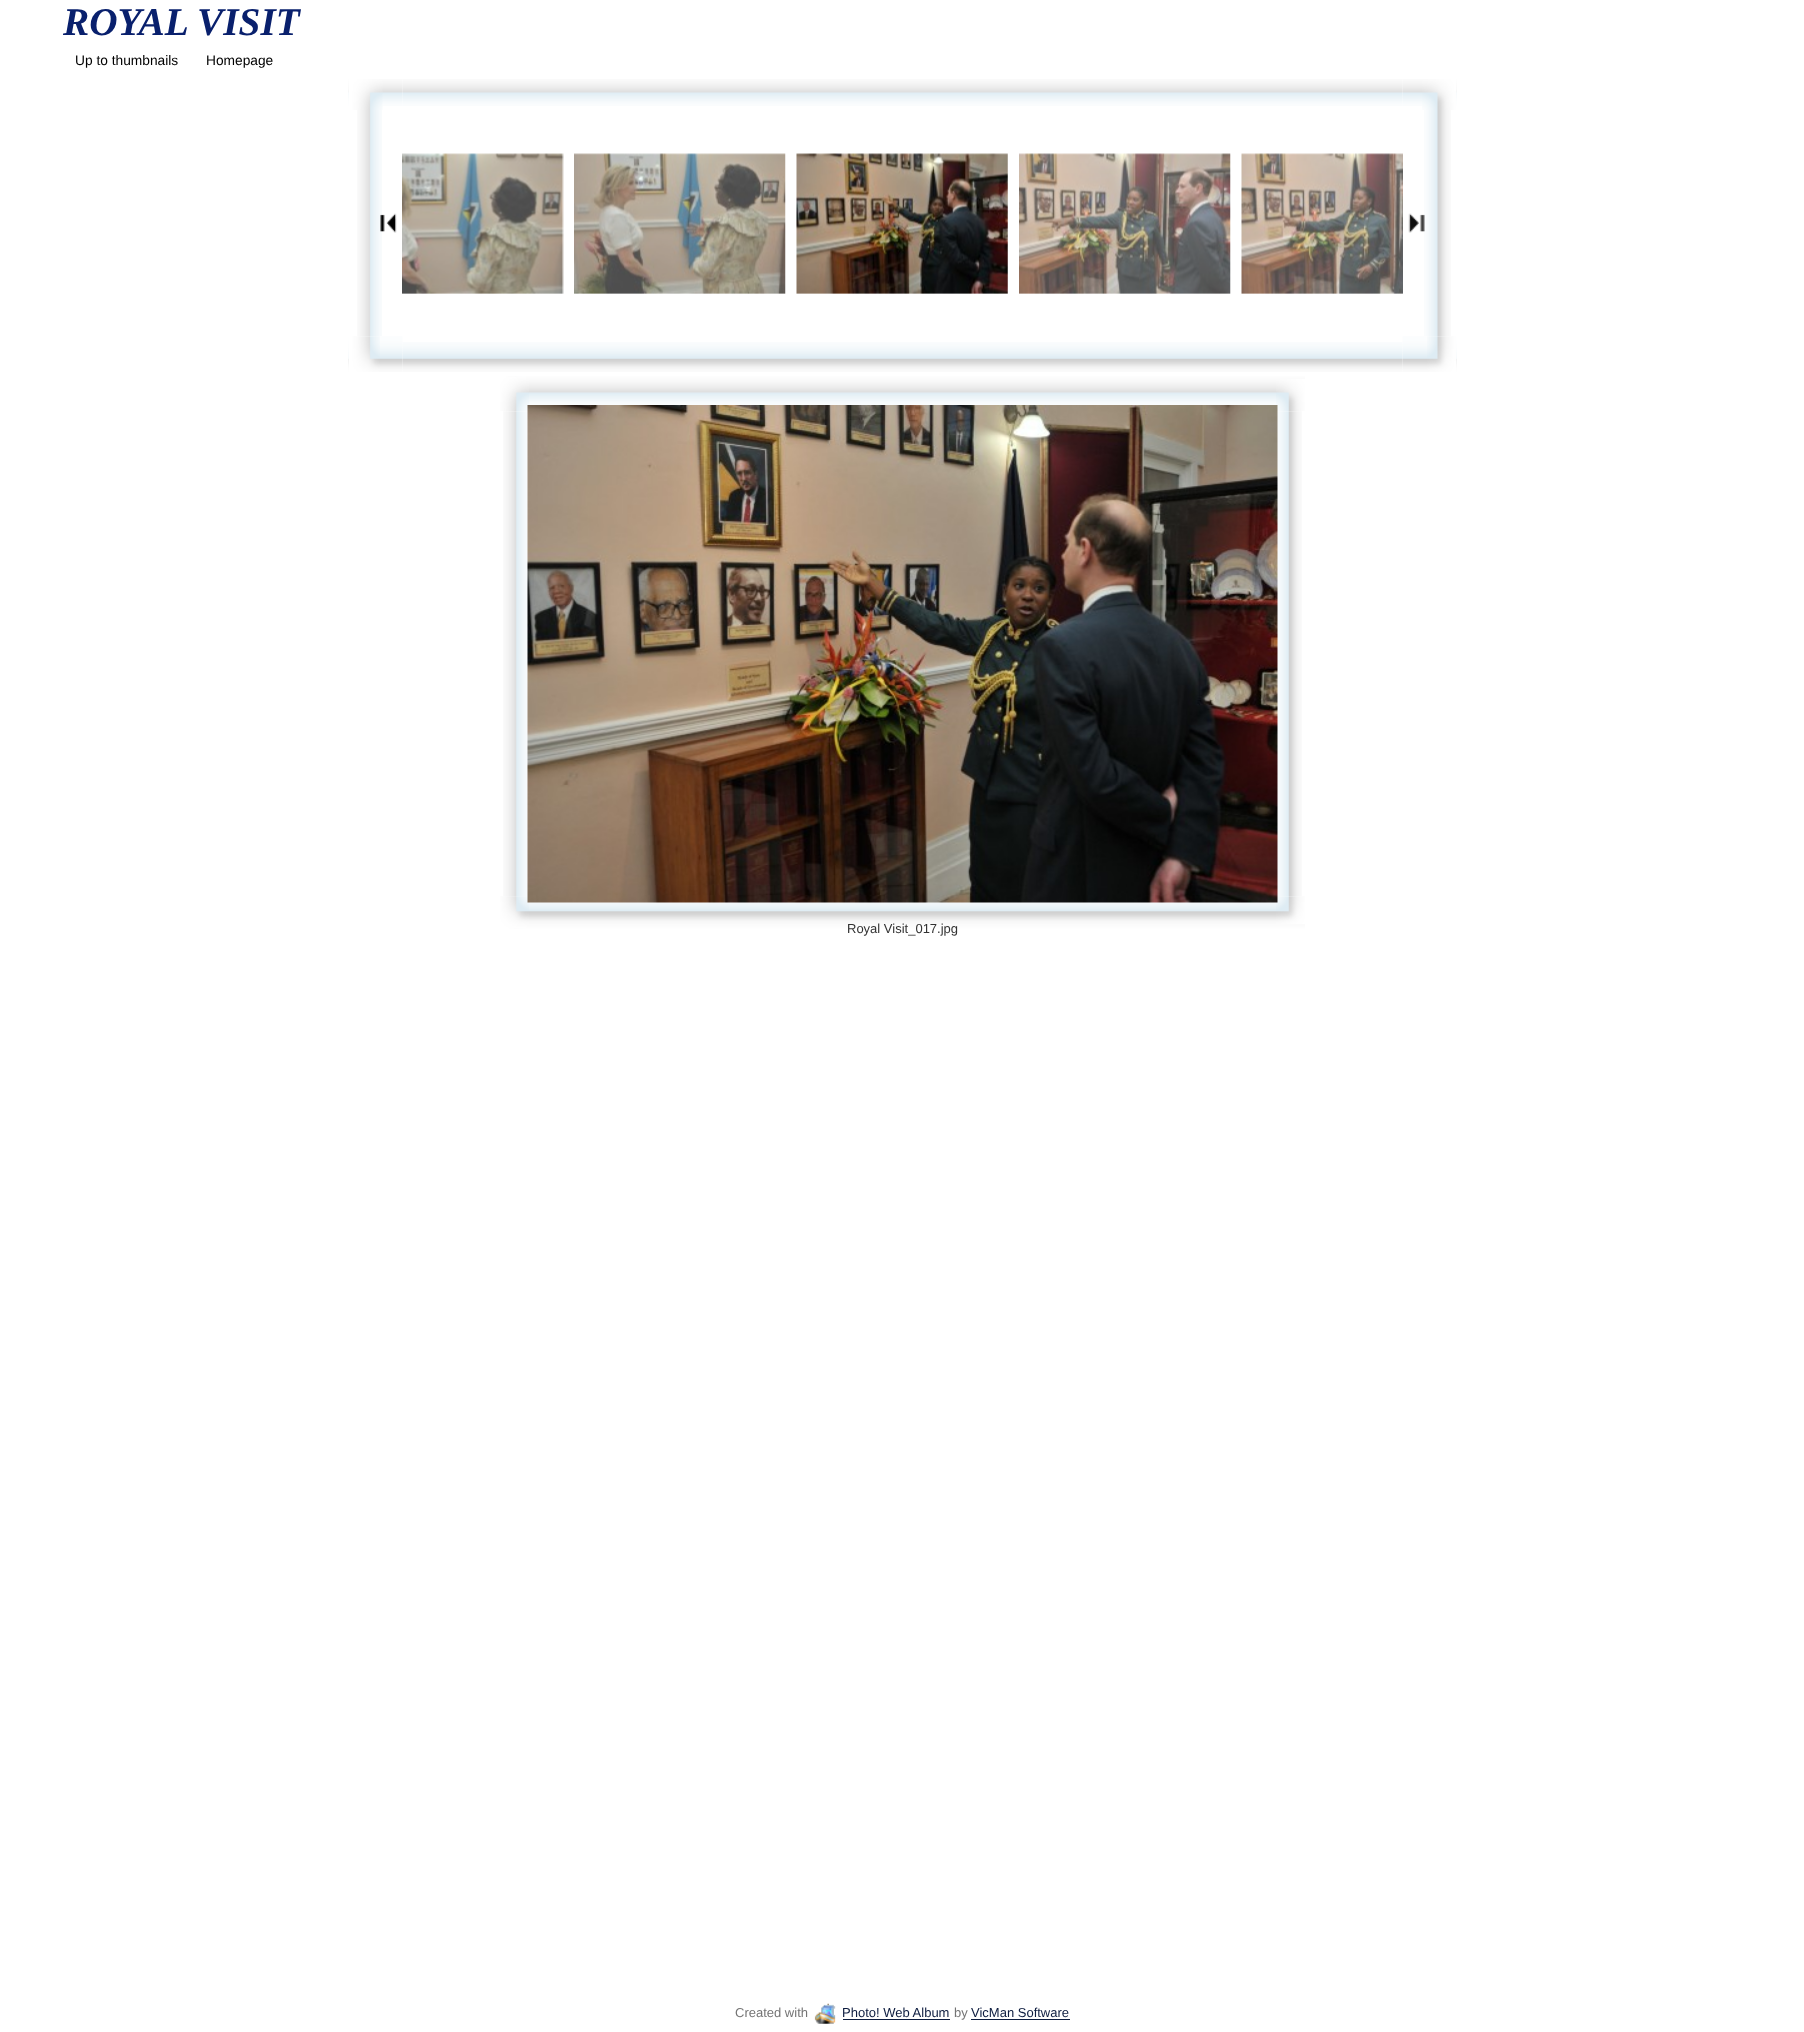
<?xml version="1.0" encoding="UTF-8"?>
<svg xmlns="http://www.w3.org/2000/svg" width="1804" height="2032">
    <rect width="100%" height="100%" fill="#FFFFFF"/>
    <text x="63" y="35" font-family="Liberation Serif" font-size="39.25" font-weight="700" font-style="italic" fill="#09206D">ROYAL VISIT</text>
    <text x="75" y="65" font-family="Liberation Sans" font-size="13.75" fill="#000000">Up to thumbnails</text>
    <text x="206" y="65" font-family="Liberation Sans" font-size="13.75" fill="#000000">Homepage</text>
    <image x="348" y="79" width="55" height="27" href="img_01.png"/>
    <image x="349" y="79" width="34" height="31" href="img_02.png"/>
    <image x="402" y="79" width="1001" height="27" href="img_03.png"/>
    <image x="1402" y="79" width="55" height="27" href="img_04.png"/>
    <image x="1422" y="79" width="34" height="31" href="img_05.png"/>
    <image x="357" y="110" width="25" height="227" href="img_06.png"/>
    <image x="380" y="213" width="17" height="20" href="img_07.png"/>
    <image x="402" y="153" width="162" height="141" href="img_08.png"/>
    <image x="574" y="153" width="212" height="141" href="img_09.png"/>
    <image x="796" y="153" width="212" height="141" href="img_10.png"/>
    <image x="1019" y="153" width="212" height="141" href="img_11.png"/>
    <image x="1241" y="153" width="162" height="141" href="img_12.png"/>
    <image x="1424" y="110" width="27" height="227" href="img_13.png"/>
    <image x="1408" y="213" width="17" height="20" href="img_14.png"/>
    <image x="348" y="336" width="55" height="36" href="img_15.png"/>
    <image x="349" y="336" width="31" height="36" href="img_16.png"/>
    <image x="402" y="342" width="1001" height="30" href="img_17.png"/>
    <image x="1402" y="336" width="55" height="36" href="img_18.png"/>
    <image x="1427" y="336" width="29" height="36" href="img_19.png"/>
    <image x="503" y="376" width="26" height="553" href="img_20.png"/>
    <image x="500" y="376" width="805" height="36" href="img_21.png"/>
    <image x="500" y="376" width="29" height="35" href="img_22.png"/>
    <image x="1276" y="379" width="29" height="32" href="img_23.png"/>
    <image x="1277" y="411" width="25" height="486" href="img_24.png"/>
    <image x="500" y="896" width="805" height="33" href="img_26.png"/>
    <image x="500" y="896" width="29" height="33" href="img_27.png"/>
    <image x="1276" y="896" width="29" height="28" href="img_28.png"/>
    <image x="527" y="405" width="751" height="498" href="img_25.png"/>
    <text x="847" y="933" font-family="Liberation Sans" font-size="13" fill="#323232">Royal Visit_017.jpg</text>
    <text x="735" y="2017" font-family="Liberation Sans" font-size="13" fill="#747474">Created with</text>
    <image x="814" y="2003" width="22" height="21" href="img_29.png"/>
    <text x="842" y="2017" font-family="Liberation Sans" font-size="13" fill="#0D1C3F">Photo! Web Album</text>
    <rect x="843" y="2019" width="107" height="1" fill="#0D1C3F"/>
    <text x="954" y="2017" font-family="Liberation Sans" font-size="13" fill="#747474">by</text>
    <text x="971" y="2017" font-family="Liberation Sans" font-size="13" fill="#0D1C3F">VicMan Software</text>
    <rect x="971" y="2019" width="99" height="1" fill="#0D1C3F"/>
</svg>
